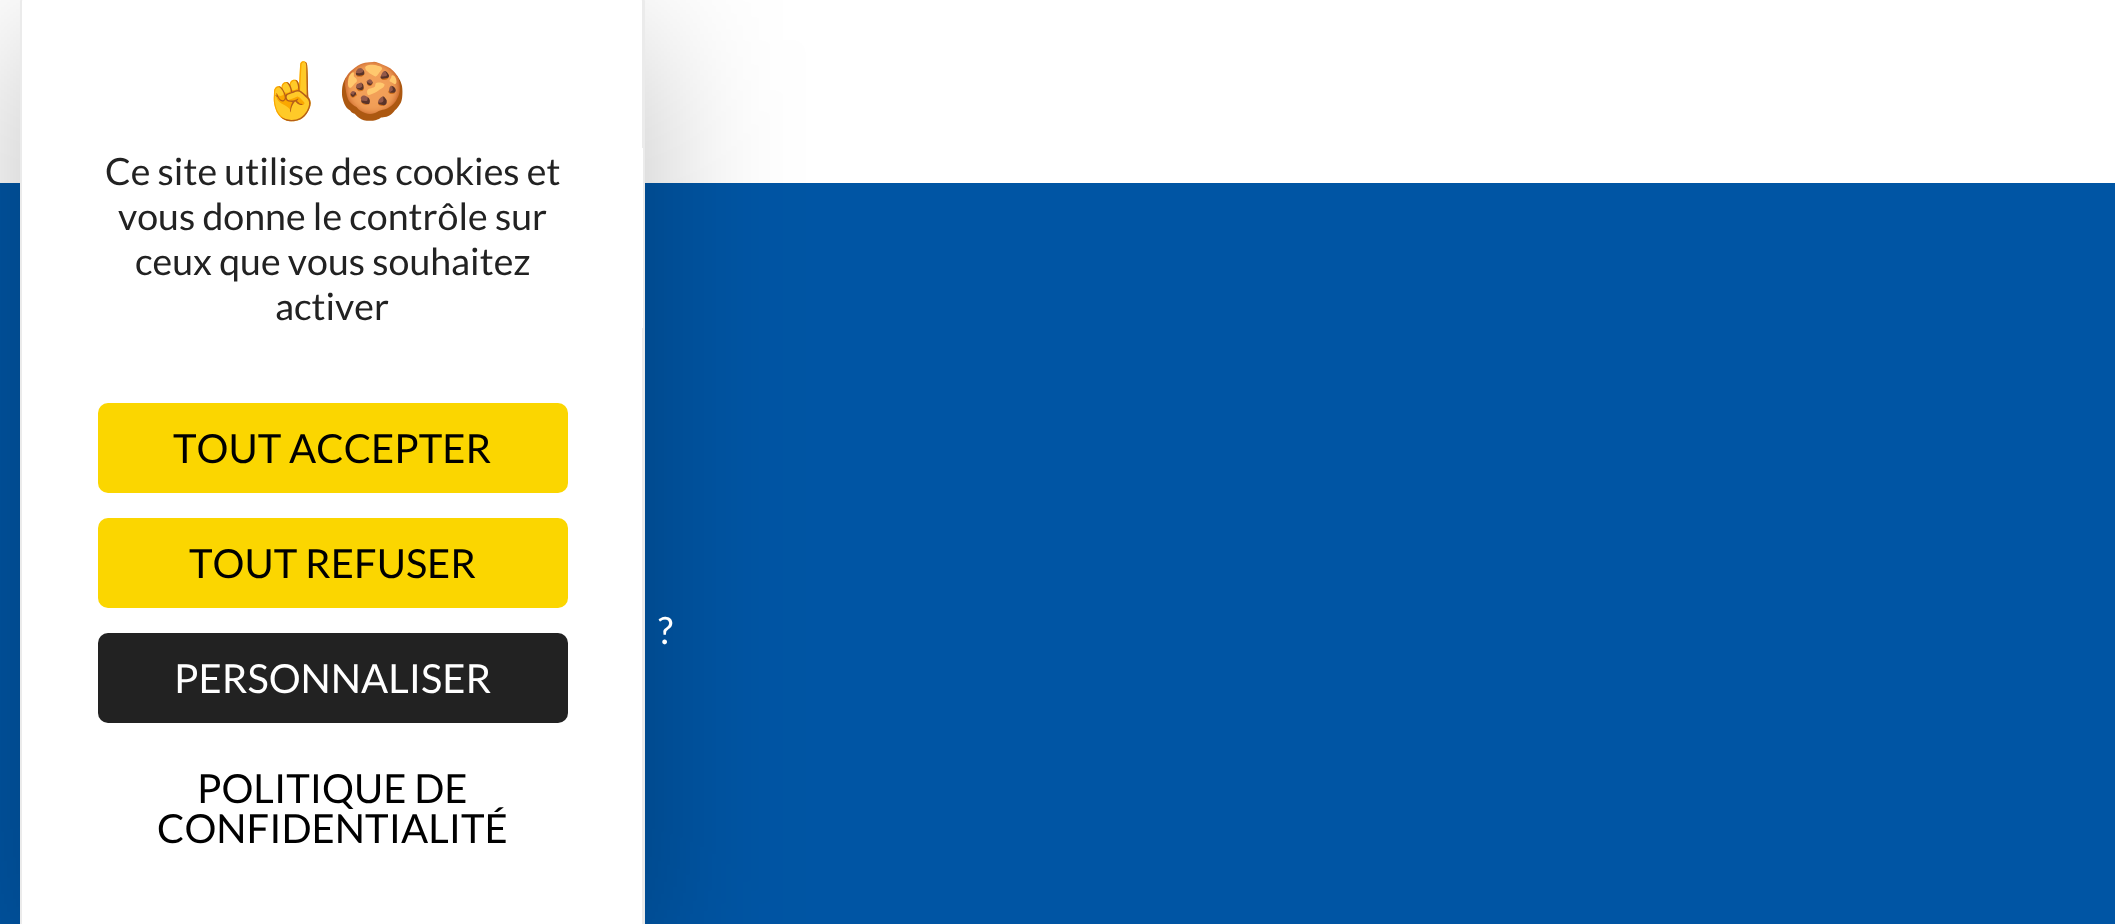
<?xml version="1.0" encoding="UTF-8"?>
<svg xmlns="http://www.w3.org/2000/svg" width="2115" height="924">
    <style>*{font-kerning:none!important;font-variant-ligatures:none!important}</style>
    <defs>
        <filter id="blur1" x="-50%" y="-200%" width="200%" height="500%"><feGaussianBlur stdDeviation="75"/></filter>
    </defs>
    <rect width="100%" height="100%" fill="#FFFFFF"/>
    <rect x="0" y="183" width="2115" height="741" fill="#0055A4"/>
    <rect x="20" y="40" width="625" height="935" rx="13" fill="#000000" fill-opacity="0.25" filter="url(#blur1)"/>
    <path d="M 33 -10 H 632 C 639 -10 645 -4 645 3 V 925 H 20 V 3 C 20 -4 26 -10 33 -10 Z" fill="#FFFFFF"/>
    <path d="M 32 -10 H 632 C 639 -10 645 -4 645 2 V 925 H 20 V 2 C 20 -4 26 -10 32 -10 Z M 32 -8 H 632 C 638 -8 642 -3 642 2 V 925 H 22 V 2 C 22 -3 27 -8 32 -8 Z" fill="#EBEBEB" fill-rule="evenodd"/>
    <text x="259" y="110" font-family="Noto Color Emoji" font-size="55" fill="#222222">☝️</text>
    <text x="338" y="110" font-family="Noto Color Emoji" font-size="55" fill="#222222">🍪</text>
    <rect x="642" y="148" width="1" height="180" fill="#FFFFFF"/>
    <text x="105" y="185" font-family="Lato" font-size="37.5" fill="#222222">Ce site utilise des cookies et</text>
    <text x="118" y="230" font-family="Lato" font-size="37.5" fill="#222222">vous donne le contrôle sur</text>
    <text x="135" y="275" font-family="Lato" font-size="37.5" fill="#222222">ceux que vous souhaitez</text>
    <text x="275" y="320" font-family="Lato" font-size="37.5" fill="#222222">activer</text>
    <rect x="98" y="403" width="470" height="90" rx="10" fill="#FBD600"/>
    <text x="173" y="463" font-family="Lato" font-size="40" fill="#000000">TOUT ACCEPTER</text>
    <rect x="98" y="518" width="470" height="90" rx="10" fill="#FBD600"/>
    <text x="189" y="578" font-family="Lato" font-size="40" fill="#000000">TOUT REFUSER</text>
    <rect x="98" y="633" width="470" height="90" rx="10" fill="#222222"/>
    <text x="174" y="693" font-family="Lato" font-size="40" fill="#FFFFFF">PERSONNALISER</text>
    <text x="197" y="803" font-family="Lato" font-size="40" fill="#000000">POLITIQUE DE</text>
    <text x="157" y="843" font-family="Lato" font-size="40" fill="#000000">CONFIDENTIALITÉ</text>
    <text x="658" y="644" font-family="Lato" font-size="37.5" fill="#FFFFFF">?</text>
</svg>
